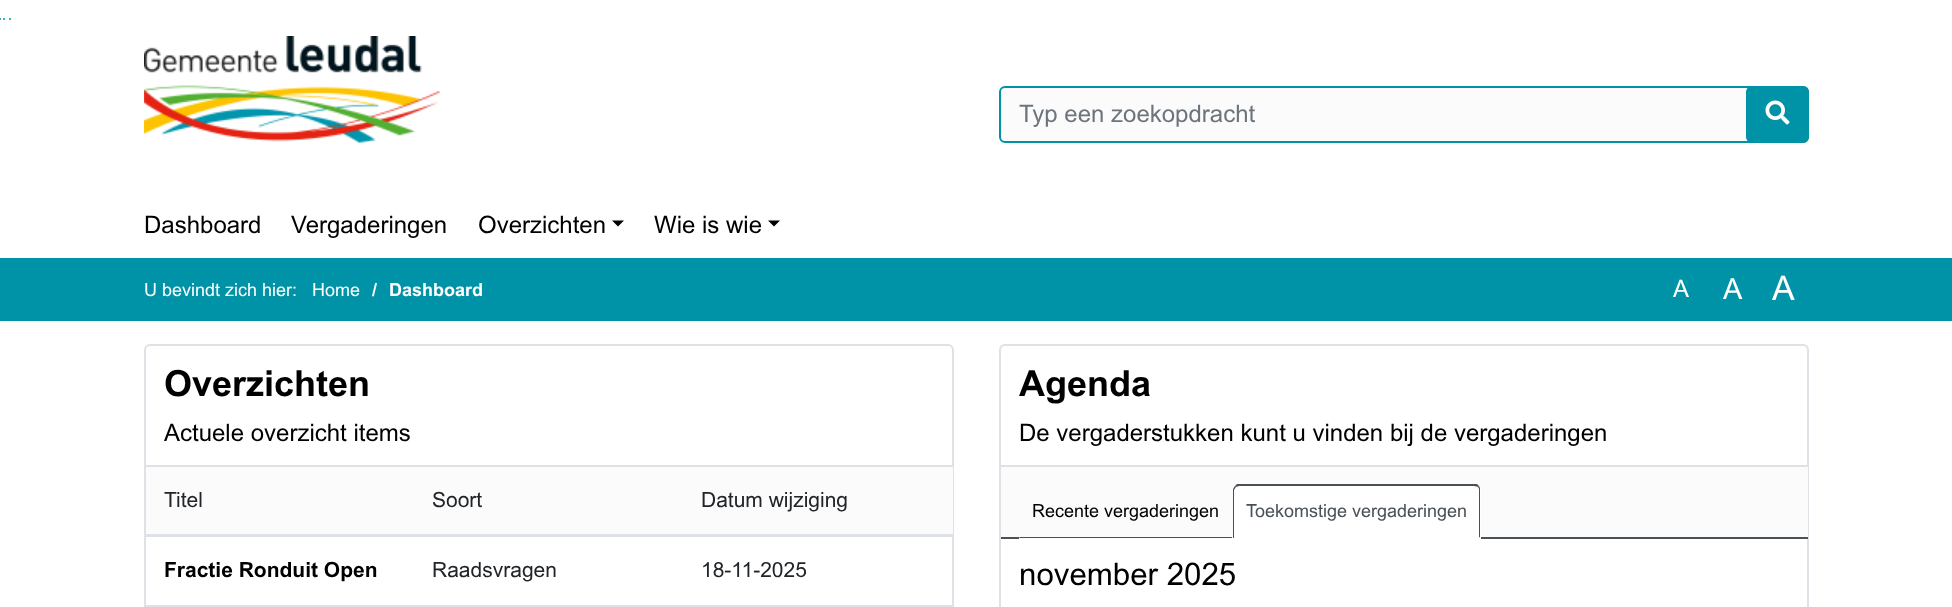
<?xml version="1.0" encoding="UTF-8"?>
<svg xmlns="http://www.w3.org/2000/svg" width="1952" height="607">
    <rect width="100%" height="100%" fill="#FFFFFF"/>
    <circle cx="0" cy="19" r="1" fill="#0093A7"/>
    <circle cx="4" cy="19" r="1" fill="#0093A7"/>
    <circle cx="10" cy="19" r="1" fill="#0093A7"/>
    <image x="144" y="36" width="296" height="107" href="img_01.png"/>
    <rect x="1000" y="87" width="808" height="55" rx="5" fill="#FBFBFB" stroke="#0093A7" stroke-width="2"/>
    <text x="1019" y="122" font-family="Arial" font-size="24" fill="#6C757D">Typ een zoekopdracht</text>
    <rect x="1746" y="86" width="63" height="57" rx="6" fill="#0093A7"/>
    <image x="1765" y="100" width="25" height="25" href="img_02.png"/>
    <text x="144" y="233" font-family="Arial" font-size="24" fill="#000000">Dashboard</text>
    <text x="291" y="233" font-family="Arial" font-size="24" fill="#000000">Vergaderingen</text>
    <text x="478" y="233" font-family="Arial" font-size="24" fill="#000000">Overzichten</text>
    <path d="M 612 220.5 H 624 L 618 226.5 Z" fill="#000000"/>
    <text x="654" y="233" font-family="Arial" font-size="24" fill="#000000">Wie is wie</text>
    <path d="M 768 220.5 H 780 L 774 226.5 Z" fill="#000000"/>
    <rect x="0" y="258" width="1952" height="63" fill="#0093A7"/>
    <text x="144" y="296" font-family="Arial" font-size="18" fill="#FFFFFF">U bevindt zich hier:</text>
    <text x="312" y="296" font-family="Arial" font-size="18" fill="#FFFFFF">Home</text>
    <text x="372" y="296" font-family="Arial" font-size="18" font-weight="700" fill="#FFFFFF">/</text>
    <text x="389" y="296" font-family="Arial" font-size="18" font-weight="700" fill="#FFFFFF">Dashboard</text>
    <text x="1673" y="297" font-family="Arial" font-size="24" fill="#FFFFFF">A</text>
    <text x="1723" y="299" font-family="Arial" font-size="29" fill="#FFFFFF">A</text>
    <text x="1772" y="300" font-family="Arial" font-size="34" fill="#FFFFFF">A</text>
    <rect x="145" y="345" width="808" height="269" rx="5" fill="none" stroke="#DEE2E6" stroke-width="2"/>
    <text x="164" y="396" font-family="Arial" font-size="36" font-weight="700" fill="#000000">Overzichten</text>
    <text x="164" y="441" font-family="Arial" font-size="24" fill="#000000">Actuele overzicht items</text>
    <rect x="146" y="465" width="807" height="2" fill="#DEE2E6"/>
    <rect x="146" y="467" width="807" height="67" fill="#FBFBFB"/>
    <text x="164" y="507" font-family="Arial" font-size="21" fill="#212529">Titel</text>
    <text x="432" y="507" font-family="Arial" font-size="21" fill="#212529">Soort</text>
    <rect x="144" y="534" width="810" height="3" fill="#DEE2E6"/>
    <text x="701" y="507" font-family="Arial" font-size="21" fill="#212529">Datum wijziging</text>
    <text x="164" y="577" font-family="Arial" font-size="21" font-weight="700" fill="#000000">Fractie Ronduit Open</text>
    <text x="432" y="577" font-family="Arial" font-size="21" fill="#212529">Raadsvragen</text>
    <text x="701" y="577" font-family="Arial" font-size="21" fill="#212529">18-11-2025</text>
    <rect x="146" y="605" width="808" height="2" fill="#DEE2E6"/>
    <rect x="1000" y="345" width="808" height="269" rx="5" fill="none" stroke="#DEE2E6" stroke-width="2"/>
    <text x="1019" y="396" font-family="Arial" font-size="36" font-weight="700" fill="#000000">Agenda</text>
    <text x="1019" y="441" font-family="Arial" font-size="24" fill="#000000">De vergaderstukken kunt u vinden bij de vergaderingen</text>
    <rect x="1001" y="465" width="807" height="2" fill="#DEE2E6"/>
    <rect x="1001" y="467" width="807" height="70" fill="#FBFBFB"/>
    <rect x="1001" y="537" width="807" height="2" fill="#495057"/>
    <path d="M 1025 485 H 1227 C 1230.5 485 1233 487.5 1233 491 V 539 H 1019 V 491 C 1019 487.5 1021.5 485 1025 485 Z" fill="#FBFBFB"/>
    <path d="M 1232 538 H 1019 L 1020 537 H 1232 Z" fill="#495057"/>
    <text x="1032" y="517" font-family="Arial" font-size="18" fill="#000000">Recente vergaderingen</text>
    <path d="M 1239 485 H 1475 C 1478.5 485 1481 487.5 1481 491 V 539 H 1233 V 491 C 1233 487.5 1235.5 485 1239 485 Z" fill="#FFFFFF"/>
    <path d="M 1239 486 L 1236 487 L 1235 486 L 1237 484 H 1477 L 1479 486 L 1478 487 C 1477 487 1476 486 1474 486 Z" fill="#495057"/>
    <path d="M 1479 486 C 1480 487 1480 489 1480 490 V 538 L 1479 537 V 489 L 1478 487 Z" fill="#495057"/>
    <path d="M 1480 538 L 1479 537 H 1234 V 538 Z" fill="#FFFFFF"/>
    <path d="M 1233 490 V 538 H 1234 V 537 V 490 L 1236 487 L 1235 486 C 1234 487 1233 489 1233 490 Z" fill="#495057"/>
    <text x="1246" y="517" font-family="Arial" font-size="18" fill="#495057">Toekomstige vergaderingen</text>
    <text x="1019" y="585" font-family="Arial" font-size="31.25" fill="#000000">november 2025</text>
</svg>
